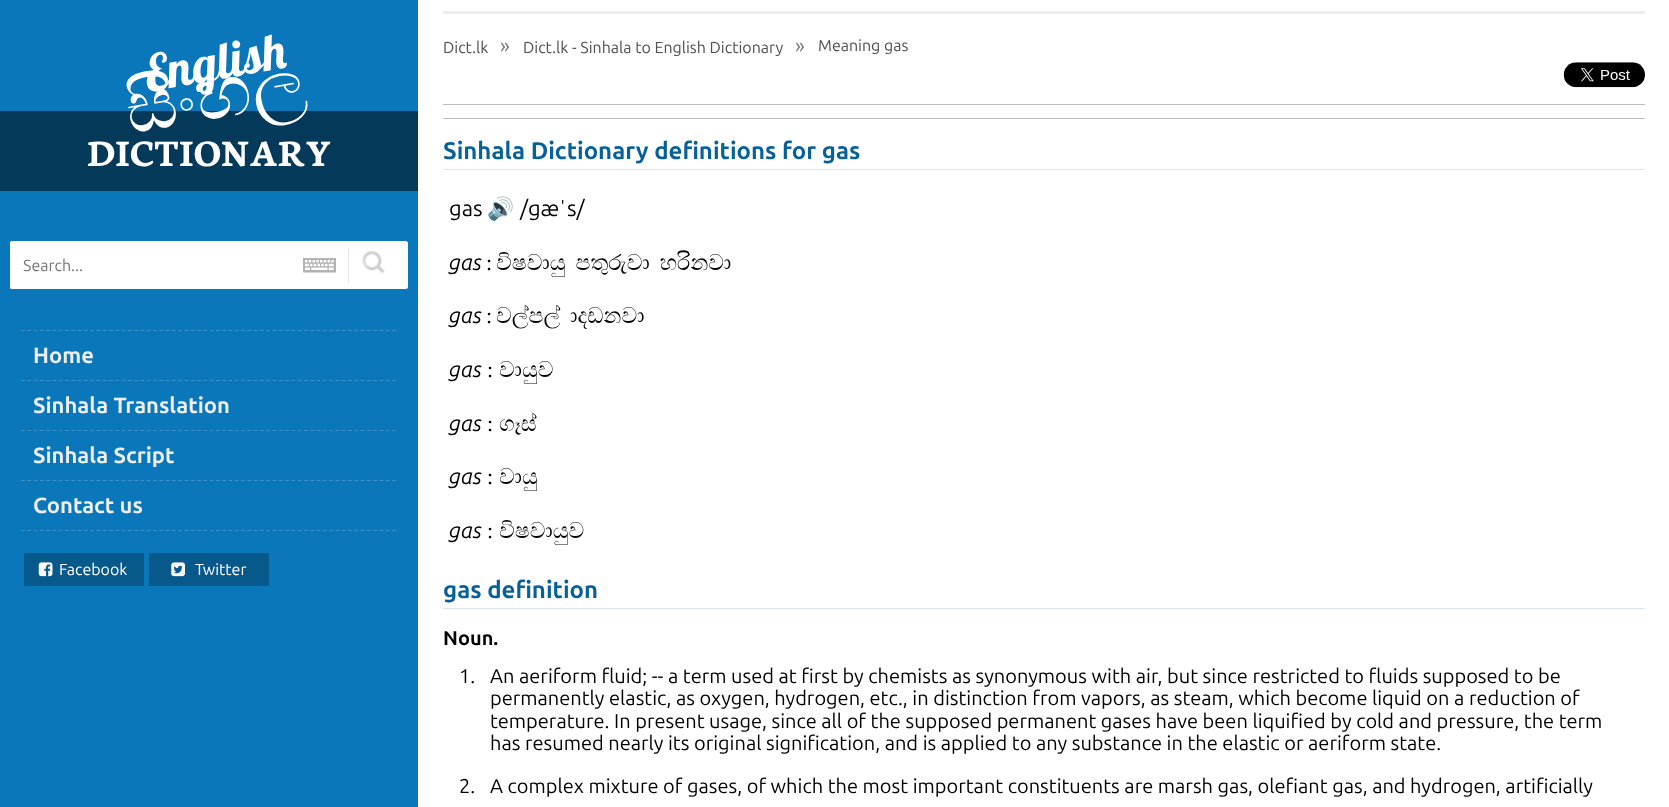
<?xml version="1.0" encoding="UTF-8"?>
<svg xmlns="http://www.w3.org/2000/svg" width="1669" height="807">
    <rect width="100%" height="100%" fill="#FFFFFF"/>
    <rect x="0" y="0" width="418" height="807" fill="#0A77BB"/>
    <text x="148" y="92" transform="rotate(-10 148 92)" font-family="Lobster" font-size="50" fill="#FFFFFF">English</text>
    <rect x="0" y="111" width="418" height="80" fill="#05395A"/>
    <text x="130" y="134" transform="rotate(-10 130 134)" font-family="FreeSerif" font-size="72" fill="#FFFFFF">සිංහල</text>
    <text x="87" y="166" font-family="Neuton" font-size="40" font-weight="700" fill="#FFFFFF">DICTIONARY</text>
    <rect x="10" y="241" width="398" height="48" rx="2.5" fill="#FFFFFF"/>
    <rect x="10" y="241" width="338" height="48" rx="2.5" fill="#FFFFFF"/>
    <text x="23" y="271" font-family="Ubuntu" font-size="16" fill="#757575">Search...</text>
    <image x="303" y="258" width="33" height="15" href="img_01.png"/>
    <rect x="348" y="248" width="1" height="35" fill="#E5E5E5"/>
    <image x="362" y="251" width="23" height="23" href="img_02.png"/>
    <path d="M 21 330.5 H 396" fill="none" stroke="#3B92C9" stroke-width="1.2" stroke-dasharray="3.75 2.54"/>
    <path d="M 21 380.5 H 396" fill="none" stroke="#3B92C9" stroke-width="1.2" stroke-dasharray="3.75 2.54"/>
    <text x="33" y="363" font-family="Ubuntu" font-size="22" font-weight="700" fill="#EEEEEE">Home</text>
    <path d="M 21 430.5 H 396" fill="none" stroke="#3B92C9" stroke-width="1.2" stroke-dasharray="3.75 2.54"/>
    <text x="33" y="413" font-family="Ubuntu" font-size="22" font-weight="700" fill="#EEEEEE">Sinhala Translation</text>
    <path d="M 21 480.5 H 396" fill="none" stroke="#3B92C9" stroke-width="1.2" stroke-dasharray="3.75 2.54"/>
    <text x="33" y="463" font-family="Ubuntu" font-size="22" font-weight="700" fill="#EEEEEE">Sinhala Script</text>
    <path d="M 21 530.5 H 396" fill="none" stroke="#3B92C9" stroke-width="1.2" stroke-dasharray="3.75 2.54"/>
    <text x="33" y="513" font-family="Ubuntu" font-size="22" font-weight="700" fill="#EEEEEE">Contact us</text>
    <rect x="24" y="553" width="120" height="33" fill="#07588B"/>
    <image x="38" y="562" width="15" height="15" href="img_03.png"/>
    <text x="59" y="575" font-family="Ubuntu" font-size="16" fill="#FFFFFF">Facebook</text>
    <rect x="149" y="553" width="120" height="33" fill="#07588B"/>
    <image x="171" y="562" width="14" height="15" href="img_04.png"/>
    <text x="195" y="575" font-family="Ubuntu" font-size="16" fill="#FFFFFF">Twitter</text>
    <rect x="443" y="11" width="1202" height="3" fill="#EEEEEE"/>
    <text x="443" y="53" font-family="Ubuntu" font-size="16" fill="#4F4F4F">Dict.lk</text>
    <text x="500" y="53" font-family="Ubuntu" font-size="21" fill="#7E7979">»</text>
    <text x="523" y="53" font-family="Ubuntu" font-size="16" fill="#4F4F4F">Dict.lk - Sinhala to English Dictionary</text>
    <text x="795" y="53" font-family="Ubuntu" font-size="21" fill="#7E7979">»</text>
    <text x="818" y="51" font-family="Ubuntu" font-size="16" fill="#4F4F4F">Meaning gas</text>
    <image x="1563" y="62" width="82" height="26" href="img_05.png"/>
    <rect x="443" y="104" width="1202" height="1" fill="#BCBCBC"/>
    <rect x="443" y="118" width="1202" height="1" fill="#BCBCBC"/>
    <rect x="443" y="169" width="1202" height="1" fill="#DAE7F0"/>
    <text x="443" y="159" font-family="Ubuntu" font-size="24" font-weight="700" fill="#06619A">Sinhala Dictionary definitions for gas</text>
    <text x="487" y="216" font-family="Noto Color Emoji" font-size="22" fill="#0000EE">🔊</text>
    <text x="520" y="216" font-family="Ubuntu" font-size="22" fill="#000000">/gæ</text>
    <text x="559" y="216" font-family="Liberation Sans" font-size="22" fill="#000000">ˈ</text>
    <text x="567" y="216" font-family="Ubuntu" font-size="22" fill="#000000">s/</text>
    <text x="449" y="216" font-family="Ubuntu" font-size="22" fill="#000000">gas</text>
    <text x="449" y="270" font-family="Ubuntu" font-size="22" font-style="italic" fill="#000000">gas</text>
    <text x="486" y="270" font-family="Liberation Serif" font-size="22" fill="#000000">:</text>
    <text x="496" y="270" word-spacing="-1" font-family="FreeSerif" font-size="22" fill="#000000">විෂවායු පතුරුවා හරිනවා</text>
    <text x="449" y="323" font-family="Ubuntu" font-size="22" font-style="italic" fill="#000000">gas</text>
    <text x="486" y="323" font-family="Liberation Serif" font-size="22" fill="#000000">:</text>
    <text x="496" y="323" word-spacing="-1" font-family="FreeSerif" font-size="22" fill="#000000">වල්පල් දොඩනවා</text>
    <text x="449" y="377" font-family="Ubuntu" font-size="22" font-style="italic" fill="#000000">gas</text>
    <text x="487" y="377" font-family="Liberation Serif" font-size="22" fill="#000000">:</text>
    <text x="499" y="377" font-family="FreeSerif" font-size="22" fill="#000000">වායුව</text>
    <text x="449" y="431" font-family="Ubuntu" font-size="22" font-style="italic" fill="#000000">gas</text>
    <text x="487" y="431" font-family="Liberation Serif" font-size="22" fill="#000000">:</text>
    <text x="499" y="431" font-family="FreeSerif" font-size="22" fill="#000000">ගෑස්</text>
    <text x="449" y="484" font-family="Ubuntu" font-size="22" font-style="italic" fill="#000000">gas</text>
    <text x="487" y="484" font-family="Liberation Serif" font-size="22" fill="#000000">:</text>
    <text x="499" y="484" font-family="FreeSerif" font-size="22" fill="#000000">වායු</text>
    <text x="449" y="538" font-family="Ubuntu" font-size="22" font-style="italic" fill="#000000">gas</text>
    <text x="487" y="538" font-family="Liberation Serif" font-size="22" fill="#000000">:</text>
    <text x="499" y="538" font-family="FreeSerif" font-size="22" fill="#000000">විෂවායුව</text>
    <rect x="443" y="608" width="1202" height="1" fill="#DAE7F0"/>
    <text x="443" y="598" font-family="Ubuntu" font-size="24" font-weight="700" fill="#06619A">gas definition</text>
    <text x="443" y="645" font-family="Ubuntu" font-size="20" font-weight="700" fill="#000000">Noun.</text>
    <text x="459" y="683" font-family="Ubuntu" font-size="20" fill="#000000">1.</text>
    <text font-family="Ubuntu" font-size="20" fill="#000000">
        <tspan x="490" y="683">An aeriform fluid; -- a term used at first by chemists as synonymous with air, but since restricted to fluids supposed to be</tspan>
        <tspan x="490" y="705">permanently elastic, as oxygen, hydrogen, etc., in distinction from vapors, as steam, which become liquid on a reduction of</tspan>
        <tspan x="490" y="728">temperature. In present usage, since all of the supposed permanent gases have been liquified by cold and pressure, the term</tspan>
        <tspan x="490" y="750">has resumed nearly its original signification, and is applied to any substance in the elastic or aeriform state.</tspan>
    </text>
    <text x="459" y="793" font-family="Ubuntu" font-size="20" fill="#000000">2.</text>
    <text x="490" y="793" font-family="Ubuntu" font-size="20" fill="#000000">A complex mixture of gases, of which the most important constituents are marsh gas, olefiant gas, and hydrogen, artificially</text>
</svg>
